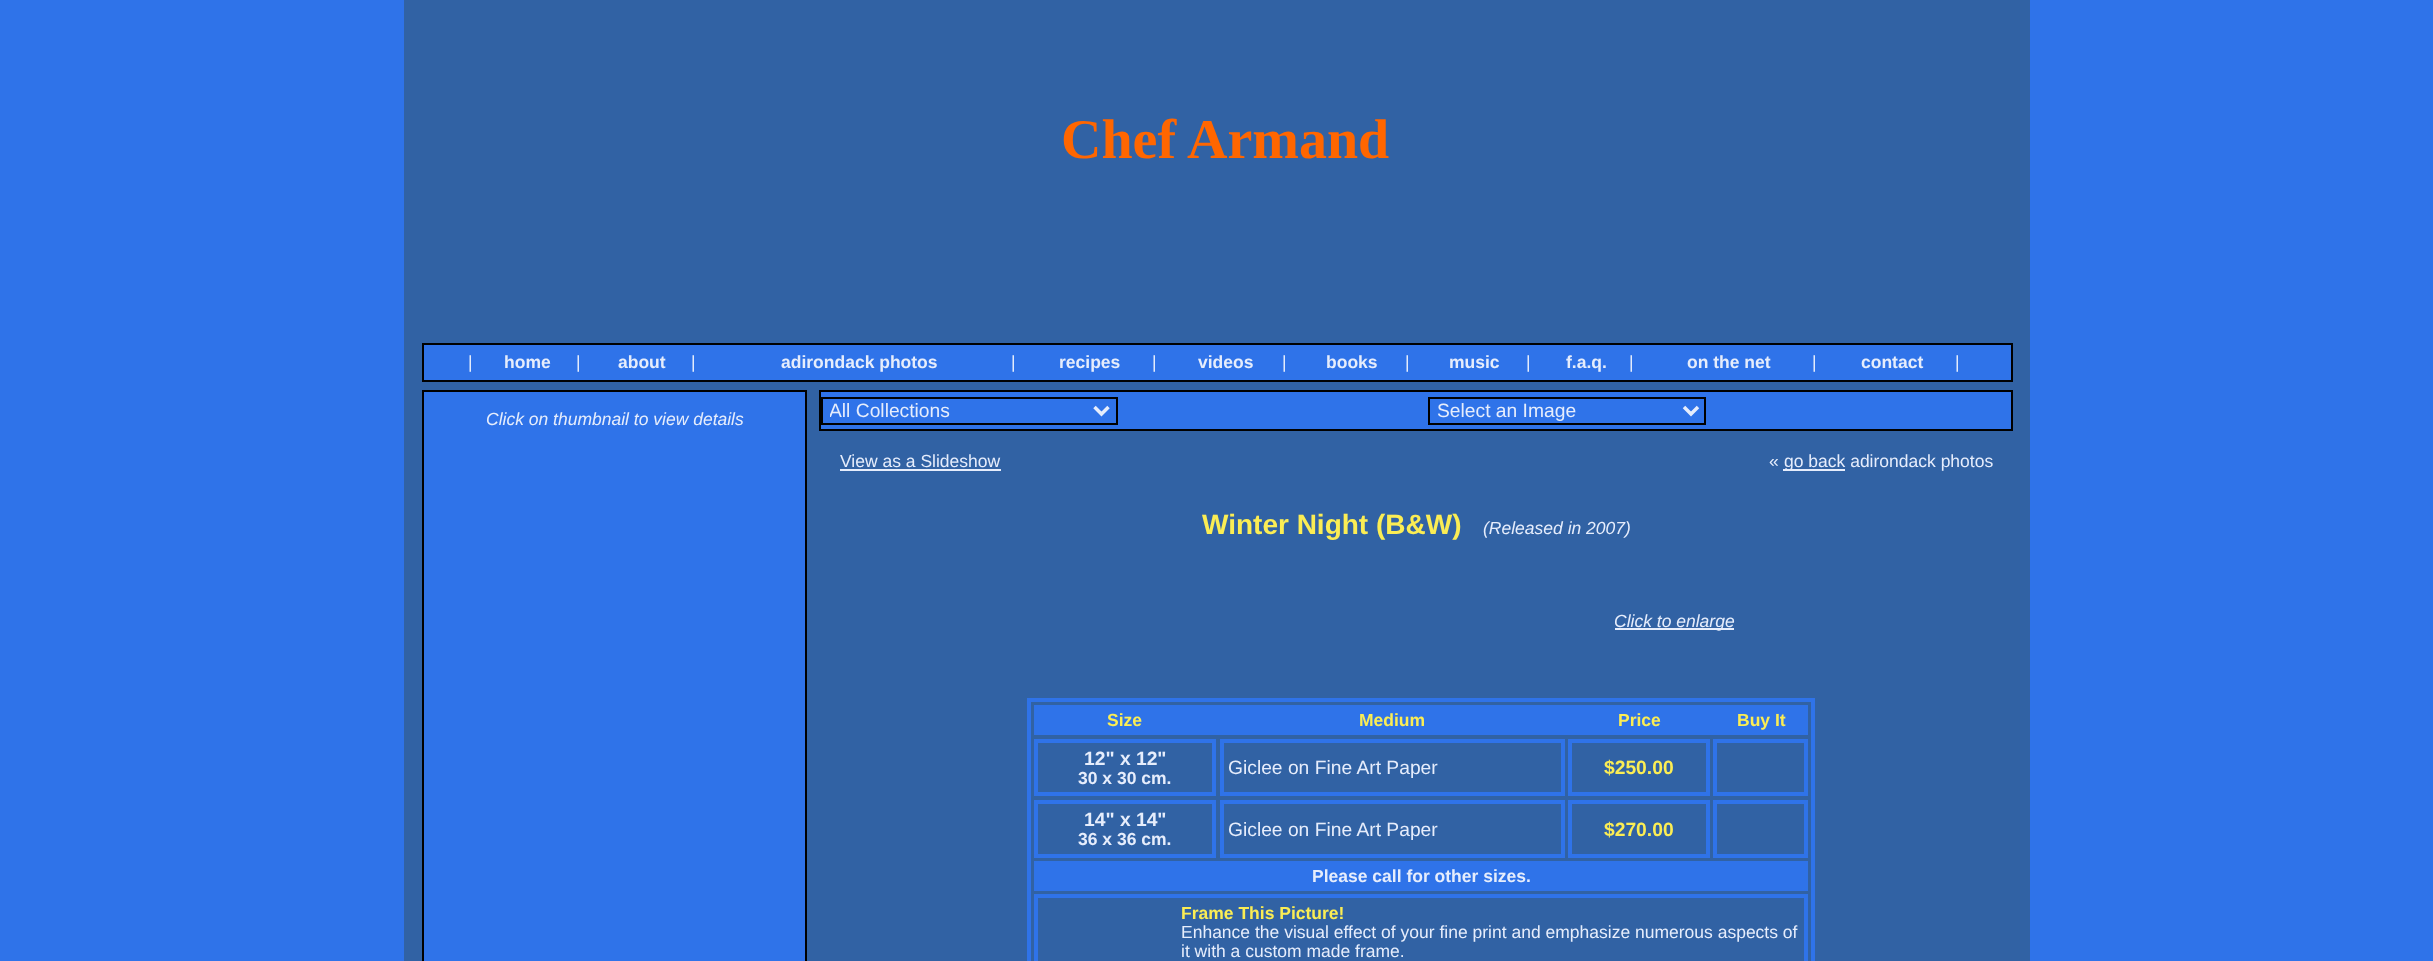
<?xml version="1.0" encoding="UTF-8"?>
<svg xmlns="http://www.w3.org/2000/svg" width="2433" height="961">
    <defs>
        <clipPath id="clip1"><rect x="830" y="399" width="259" height="25"/></clipPath>
    </defs>
    <rect width="100%" height="100%" fill="#2F73E9"/>
    <rect x="404" y="0" width="1626" height="961" fill="#3162A4"/>
    <text x="1061" y="158" font-family="Liberation Serif" font-size="56" font-weight="700" fill="#FF6600">Chef Armand</text>
    <rect x="423" y="344" width="1589" height="37" fill="#2F73E9" stroke="#000000" stroke-width="2"/>
    <text x="468" y="368" font-family="Liberation Sans" font-size="17.5" fill="#E6EDFC">|</text>
    <text x="504" y="368" font-family="Liberation Sans" font-size="17.5" font-weight="700" fill="#E6EDFC">home</text>
    <text x="576" y="368" font-family="Liberation Sans" font-size="17.5" fill="#E6EDFC">|</text>
    <text x="618" y="368" font-family="Liberation Sans" font-size="17.5" font-weight="700" fill="#E6EDFC">about</text>
    <text x="691" y="368" font-family="Liberation Sans" font-size="17.5" fill="#E6EDFC">|</text>
    <text x="781" y="368" font-family="Liberation Sans" font-size="17.5" font-weight="700" fill="#E6EDFC">adirondack photos</text>
    <text x="1011" y="368" font-family="Liberation Sans" font-size="17.5" fill="#E6EDFC">|</text>
    <text x="1059" y="368" font-family="Liberation Sans" font-size="17.5" font-weight="700" fill="#E6EDFC">recipes</text>
    <text x="1152" y="368" font-family="Liberation Sans" font-size="17.5" fill="#E6EDFC">|</text>
    <text x="1198" y="368" font-family="Liberation Sans" font-size="17.5" font-weight="700" fill="#E6EDFC">videos</text>
    <text x="1282" y="368" font-family="Liberation Sans" font-size="17.5" fill="#E6EDFC">|</text>
    <text x="1326" y="368" font-family="Liberation Sans" font-size="17.5" font-weight="700" fill="#E6EDFC">books</text>
    <text x="1405" y="368" font-family="Liberation Sans" font-size="17.5" fill="#E6EDFC">|</text>
    <text x="1449" y="368" font-family="Liberation Sans" font-size="17.5" font-weight="700" fill="#E6EDFC">music</text>
    <text x="1526" y="368" font-family="Liberation Sans" font-size="17.5" fill="#E6EDFC">|</text>
    <text x="1566" y="368" font-family="Liberation Sans" font-size="17.5" font-weight="700" fill="#E6EDFC">f.a.q.</text>
    <text x="1629" y="368" font-family="Liberation Sans" font-size="17.5" fill="#E6EDFC">|</text>
    <text x="1687" y="368" font-family="Liberation Sans" font-size="17.5" font-weight="700" fill="#E6EDFC">on the net</text>
    <text x="1812" y="368" font-family="Liberation Sans" font-size="17.5" fill="#E6EDFC">|</text>
    <text x="1861" y="368" font-family="Liberation Sans" font-size="17.5" font-weight="700" fill="#E6EDFC">contact</text>
    <text x="1955" y="368" font-family="Liberation Sans" font-size="17.5" fill="#E6EDFC">|</text>
    <rect x="423" y="391" width="383" height="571" fill="#2F73E9" stroke="#000000" stroke-width="2"/>
    <text x="486" y="425" font-family="Liberation Sans" font-size="17.5" font-style="italic" fill="#E6EDFC">Click on thumbnail to view details</text>
    <rect x="820" y="391" width="1192" height="39" fill="#2F73E9" stroke="#000000" stroke-width="2"/>
    <rect x="822" y="398" width="295" height="26" fill="none" stroke="#000000" stroke-width="2"/>
    <path d="M 1094.5 407 L 1101.5 414 L 1108.5 407" fill="none" stroke="#E6EDFC" stroke-width="3.5"/>
    <g clip-path="url(#clip1)">
        <text x="829" y="417" font-family="Liberation Sans" font-size="19.25" fill="#E6EDFC">All Collections</text>
    </g>
    <rect x="1429" y="398" width="276" height="26" fill="none" stroke="#000000" stroke-width="2"/>
    <path d="M 1684 407 L 1691 414 L 1698 407" fill="none" stroke="#E6EDFC" stroke-width="3.5"/>
    <text x="1437" y="417" font-family="Liberation Sans" font-size="19.25" fill="#E6EDFC">Select an Image</text>
    <text x="840" y="467" font-family="Liberation Sans" font-size="17.5" fill="#E6EDFC">View as a Slideshow</text>
    <rect x="840" y="469" width="161" height="2" fill="#E6EDFC"/>
    <text x="1769" y="467" font-family="Liberation Sans" font-size="17.5" fill="#E6EDFC">«</text>
    <rect x="1783" y="469" width="62" height="2" fill="#E6EDFC"/>
    <text x="1784" y="467" font-family="Liberation Sans" font-size="17.5" fill="#E6EDFC">go back adirondack photos</text>
    <text x="1202" y="534" font-family="Liberation Sans" font-size="28" font-weight="700" fill="#FBED54">Winter Night (B&amp;W)</text>
    <text x="1483" y="534" font-family="Liberation Sans" font-size="17.5" font-style="italic" fill="#E6EDFC">(Released in 2007)</text>
    <rect x="1615" y="628" width="119" height="2" fill="#E6EDFC"/>
    <text x="1614" y="627" font-family="Liberation Sans" font-size="17.5" font-style="italic" fill="#E6EDFC">Click to enlarge</text>
    <rect x="1029" y="700" width="784" height="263" fill="none" stroke="#2F73E9" stroke-width="4"/>
    <rect x="1034" y="705" width="774" height="30" fill="#2F73E9"/>
    <text x="1107" y="726" font-family="Liberation Sans" font-size="17.5" font-weight="700" fill="#FBED54">Size</text>
    <text x="1359" y="726" font-family="Liberation Sans" font-size="17.5" font-weight="700" fill="#FBED54">Medium</text>
    <text x="1618" y="726" font-family="Liberation Sans" font-size="17.5" font-weight="700" fill="#FBED54">Price</text>
    <text x="1737" y="726" font-family="Liberation Sans" font-size="17.5" font-weight="700" fill="#FBED54">Buy It</text>
    <rect x="1036" y="741" width="178" height="53" fill="none" stroke="#2F73E9" stroke-width="4"/>
    <text x="1084" y="765" font-family="Liberation Sans" font-size="19.25" font-weight="700" fill="#E6EDFC">12" x 12"</text>
    <text x="1078" y="784" font-family="Liberation Sans" font-size="17.5" font-weight="700" fill="#E6EDFC">30 x 30 cm.</text>
    <rect x="1222" y="741" width="341" height="53" fill="none" stroke="#2F73E9" stroke-width="4"/>
    <text x="1228" y="774" font-family="Liberation Sans" font-size="19.25" fill="#E6EDFC">Giclee on Fine Art Paper</text>
    <rect x="1570" y="741" width="138" height="53" fill="none" stroke="#2F73E9" stroke-width="4"/>
    <text x="1604" y="774" font-family="Liberation Sans" font-size="19.25" font-weight="700" fill="#FBED54">$250.00</text>
    <rect x="1715" y="741" width="91" height="53" fill="none" stroke="#2F73E9" stroke-width="4"/>
    <rect x="1036" y="802" width="178" height="54" fill="none" stroke="#2F73E9" stroke-width="4"/>
    <text x="1084" y="826" font-family="Liberation Sans" font-size="19.25" font-weight="700" fill="#E6EDFC">14" x 14"</text>
    <text x="1078" y="845" font-family="Liberation Sans" font-size="17.5" font-weight="700" fill="#E6EDFC">36 x 36 cm.</text>
    <rect x="1222" y="802" width="341" height="54" fill="none" stroke="#2F73E9" stroke-width="4"/>
    <text x="1228" y="836" font-family="Liberation Sans" font-size="19.25" fill="#E6EDFC">Giclee on Fine Art Paper</text>
    <rect x="1570" y="802" width="138" height="54" fill="none" stroke="#2F73E9" stroke-width="4"/>
    <text x="1604" y="836" font-family="Liberation Sans" font-size="19.25" font-weight="700" fill="#FBED54">$270.00</text>
    <rect x="1715" y="802" width="91" height="54" fill="none" stroke="#2F73E9" stroke-width="4"/>
    <rect x="1034" y="861" width="774" height="30" fill="#2F73E9"/>
    <text x="1312" y="882" font-family="Liberation Sans" font-size="17.5" font-weight="700" fill="#E6EDFC">Please call for other sizes.</text>
    <rect x="1036" y="896" width="770" height="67" fill="none" stroke="#2F73E9" stroke-width="4"/>
    <text x="1181" y="919" font-family="Liberation Sans" font-size="17.5" font-weight="700" fill="#FBED54">Frame This Picture!</text>
    <text font-family="Liberation Sans" font-size="17.5" fill="#E6EDFC">
        <tspan x="1181" y="938">Enhance the visual effect of your fine print and emphasize numerous aspects of</tspan>
        <tspan x="1181" y="957">it with a custom made frame.</tspan>
    </text>
</svg>
